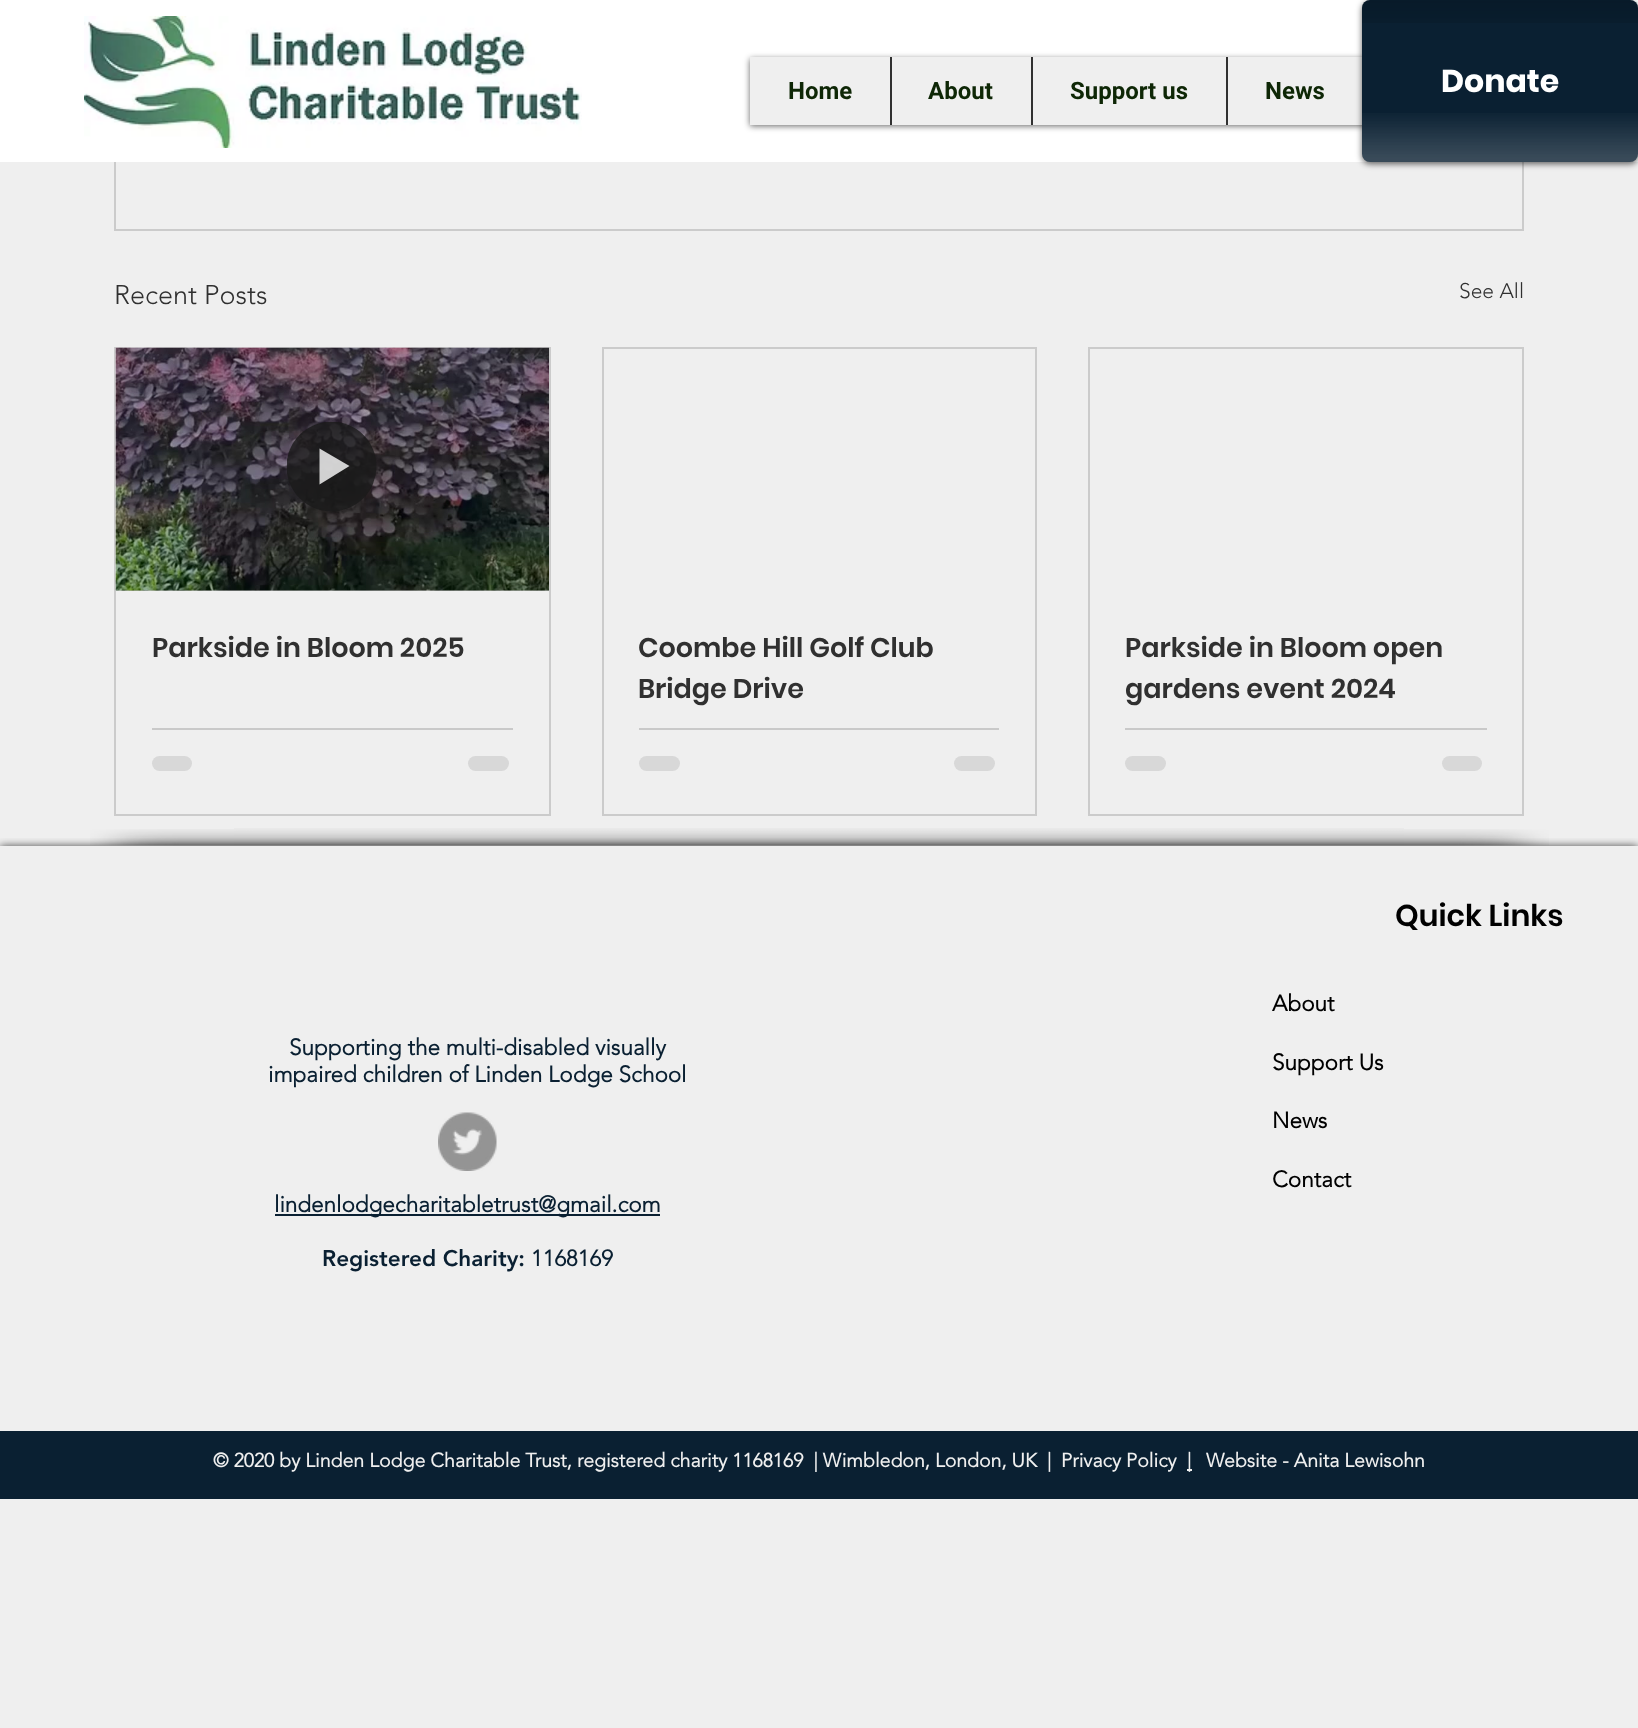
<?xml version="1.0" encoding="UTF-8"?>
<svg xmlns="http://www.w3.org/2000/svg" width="1638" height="1728">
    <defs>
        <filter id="blur1" x="-50%" y="-200%" width="200%" height="500%"><feGaussianBlur stdDeviation="3"/></filter>
        <clipPath id="clip1"><rect x="287" y="422" width="90" height="90"/></clipPath>
        <clipPath id="clip2"><rect x="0" y="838" width="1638" height="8"/></clipPath>
        <filter id="blur2" x="-50%" y="-200%" width="200%" height="500%"><feGaussianBlur stdDeviation="4"/></filter>
    </defs>
    <rect width="100%" height="100%" fill="#EFEFEF"/>
    <rect x="115" y="-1" width="1408" height="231" fill="none" stroke="#CBCBCB" stroke-width="2"/>
    <rect x="0" y="0" width="1638" height="162" fill="#FFFFFF"/>
    <image x="84" y="16" width="498" height="132" href="img_01.png"/>
    <rect x="750" y="59" width="803" height="67" fill="#000000" fill-opacity="0.6" filter="url(#blur1)"/>
    <rect x="750" y="57" width="612" height="68" fill="#EFEFEF"/>
    <text x="788" y="99" font-family="Roboto" font-size="24" font-weight="700" fill="#0E2706">Home</text>
    <rect x="890" y="57" width="2" height="68" fill="#303030"/>
    <text x="928" y="99" font-family="Roboto" font-size="24" font-weight="700" fill="#0E2706">About</text>
    <rect x="1031" y="57" width="2" height="68" fill="#303030"/>
    <text x="1070" y="99" font-family="Roboto" font-size="24" font-weight="700" fill="#0E2706">Support us</text>
    <rect x="1226" y="57" width="2" height="68" fill="#303030"/>
    <text x="1265" y="99" font-family="Roboto" font-size="24" font-weight="700" fill="#0E2706">News</text>
    <rect x="1362" y="2" width="276" height="162" rx="8" fill="#000000" fill-opacity="0.6" filter="url(#blur1)"/>
    <rect x="1362" y="0" width="276" height="162" rx="8" fill="#0A2032"/>
    <image x="1362" y="0" width="276" height="23" href="img_02.png"/>
    <image x="1362" y="113" width="276" height="49" href="img_03.png"/>
    <text x="1441" y="92" font-family="Poppins" font-size="31.5" font-weight="700" fill="#FFFFFF">Donate</text>
    <text x="114" y="304" font-family="'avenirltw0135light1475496'" font-size="27" font-weight="300" fill="#303030">Recent Posts</text>
    <text x="1459" y="298" font-family="'avenirltw0135light1475496'" font-size="21" font-weight="300" fill="#303030">See All</text>
    <rect x="115" y="348" width="435" height="467" fill="none" stroke="#CBCBCB" stroke-width="2"/>
    <image x="115" y="347" width="434" height="244" href="img_04.png"/>
    <rect x="116" y="348" width="433" height="243" fill="#000000" fill-opacity="0.2"/>
    <g clip-path="url(#clip1)">
        <circle cx="331.5" cy="466.5" r="45" fill="#1A1A1A" fill-opacity="0.8"/>
    </g>
    <path d="M 319.5 448.5 V 484.5 L 349.5 466 Z" fill="#FFFFFF" fill-opacity="0.8"/>
    <text x="152" y="657" font-family="Poppins" font-size="27" font-weight="600" fill="#303030">Parkside in Bloom 2025</text>
    <rect x="152" y="728" width="361" height="2" fill="#C9C9C9"/>
    <rect x="152" y="756" width="40" height="15" rx="7.5" fill="#D8D8D8"/>
    <rect x="468" y="756" width="41" height="15" rx="7.5" fill="#D8D8D8"/>
    <rect x="603" y="348" width="433" height="467" fill="none" stroke="#CBCBCB" stroke-width="2"/>
    <text font-family="Poppins" font-size="27" font-weight="600" fill="#303030">
        <tspan x="638" y="657">Coombe Hill Golf Club</tspan>
        <tspan x="638" y="698">Bridge Drive</tspan>
    </text>
    <rect x="639" y="728" width="360" height="2" fill="#C9C9C9"/>
    <rect x="639" y="756" width="41" height="15" rx="7.5" fill="#D8D8D8"/>
    <rect x="954" y="756" width="41" height="15" rx="7.5" fill="#D8D8D8"/>
    <rect x="1089" y="348" width="434" height="467" fill="none" stroke="#CBCBCB" stroke-width="2"/>
    <text font-family="Poppins" font-size="27" font-weight="600" fill="#303030">
        <tspan x="1125" y="657">Parkside in Bloom open</tspan>
        <tspan x="1125" y="698">gardens event 2024</tspan>
    </text>
    <rect x="1125" y="728" width="362" height="2" fill="#C9C9C9"/>
    <rect x="1125" y="756" width="41" height="15" rx="7.5" fill="#D8D8D8"/>
    <rect x="1442" y="756" width="40" height="15" rx="7.5" fill="#D8D8D8"/>
    <g clip-path="url(#clip2)">
        <rect x="0" y="846" width="1638" height="882" fill="#000000" fill-opacity="0.7" filter="url(#blur2)"/>
    </g>
    <image x="90" y="829" width="144" height="17" href="img_05.png"/>
    <image x="234" y="828" width="1170" height="18" href="img_06.png"/>
    <image x="1404" y="829" width="145" height="17" href="img_07.png"/>
    <text x="1395" y="926" font-family="Poppins" font-size="30" font-weight="600" fill="#000000">Quick Links</text>
    <text x="289" y="1055" font-family="'avenirltw0135light1475496'" font-size="22.5" font-weight="700" fill="#0A2032">Supporting the multi-disabled visually</text>
    <text x="268" y="1082" font-family="'avenirltw0135light1475496'" font-size="22.5" font-weight="700" fill="#0A2032">impaired children of Linden Lodge School</text>
    <image x="438" y="1112" width="59" height="59" href="img_08.png"/>
    <rect x="275" y="1214" width="385" height="2" fill="#0A2032"/>
    <text x="274" y="1212" font-family="'avenirltw0135light1475496'" font-size="22.5" font-weight="700" fill="#0A2032">lindenlodgecharitabletrust@gmail.com</text>
    <text x="322" y="1266" font-family="'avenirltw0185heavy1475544'" font-size="22.5" font-weight="900" fill="#0A2032">Registered Charity:</text>
    <text x="531" y="1266" font-family="'avenirltw0135light1475496'" font-size="22.5" font-weight="700" fill="#0A2032">1168169</text>
    <text x="1272" y="1011" font-family="'avenirltw0135light1475496'" font-size="22.5" font-weight="700" fill="#000000">About</text>
    <text x="1272" y="1070" font-family="'avenirltw0135light1475496'" font-size="22.5" font-weight="700" fill="#000000">Support Us</text>
    <text x="1272" y="1128" font-family="'avenirltw0135light1475496'" font-size="22.5" font-weight="700" fill="#000000">News</text>
    <text x="1272" y="1187" font-family="'avenirltw0135light1475496'" font-size="22.5" font-weight="700" fill="#000000">Contact</text>
    <rect x="0" y="1431" width="1638" height="68" fill="#0A2032"/>
    <text x="213" y="1467" font-family="'avenirltw0135light1475496'" font-size="19.5" font-weight="700" fill="#EFEFEF" xml:space="preserve">© 2020 by Linden Lodge Charitable Trust, registered charity 1168169  | Wimbledon, London, UK  |</text>
    <text x="1061" y="1467" font-family="'avenirltw0135light1475496'" font-size="19.5" font-weight="700" fill="#EFEFEF">Privacy Policy</text>
    <rect x="1187" y="1469" width="5" height="2" fill="#EFEFEF"/>
    <text x="1187" y="1467" font-family="'avenirltw0135light1475496'" font-size="19.5" font-weight="700" fill="#EFEFEF">|</text>
    <text x="1206" y="1467" font-family="'avenirltw0135light1475496'" font-size="19.5" font-weight="700" fill="#EFEFEF">Website - Anita Lewisohn</text>
</svg>
